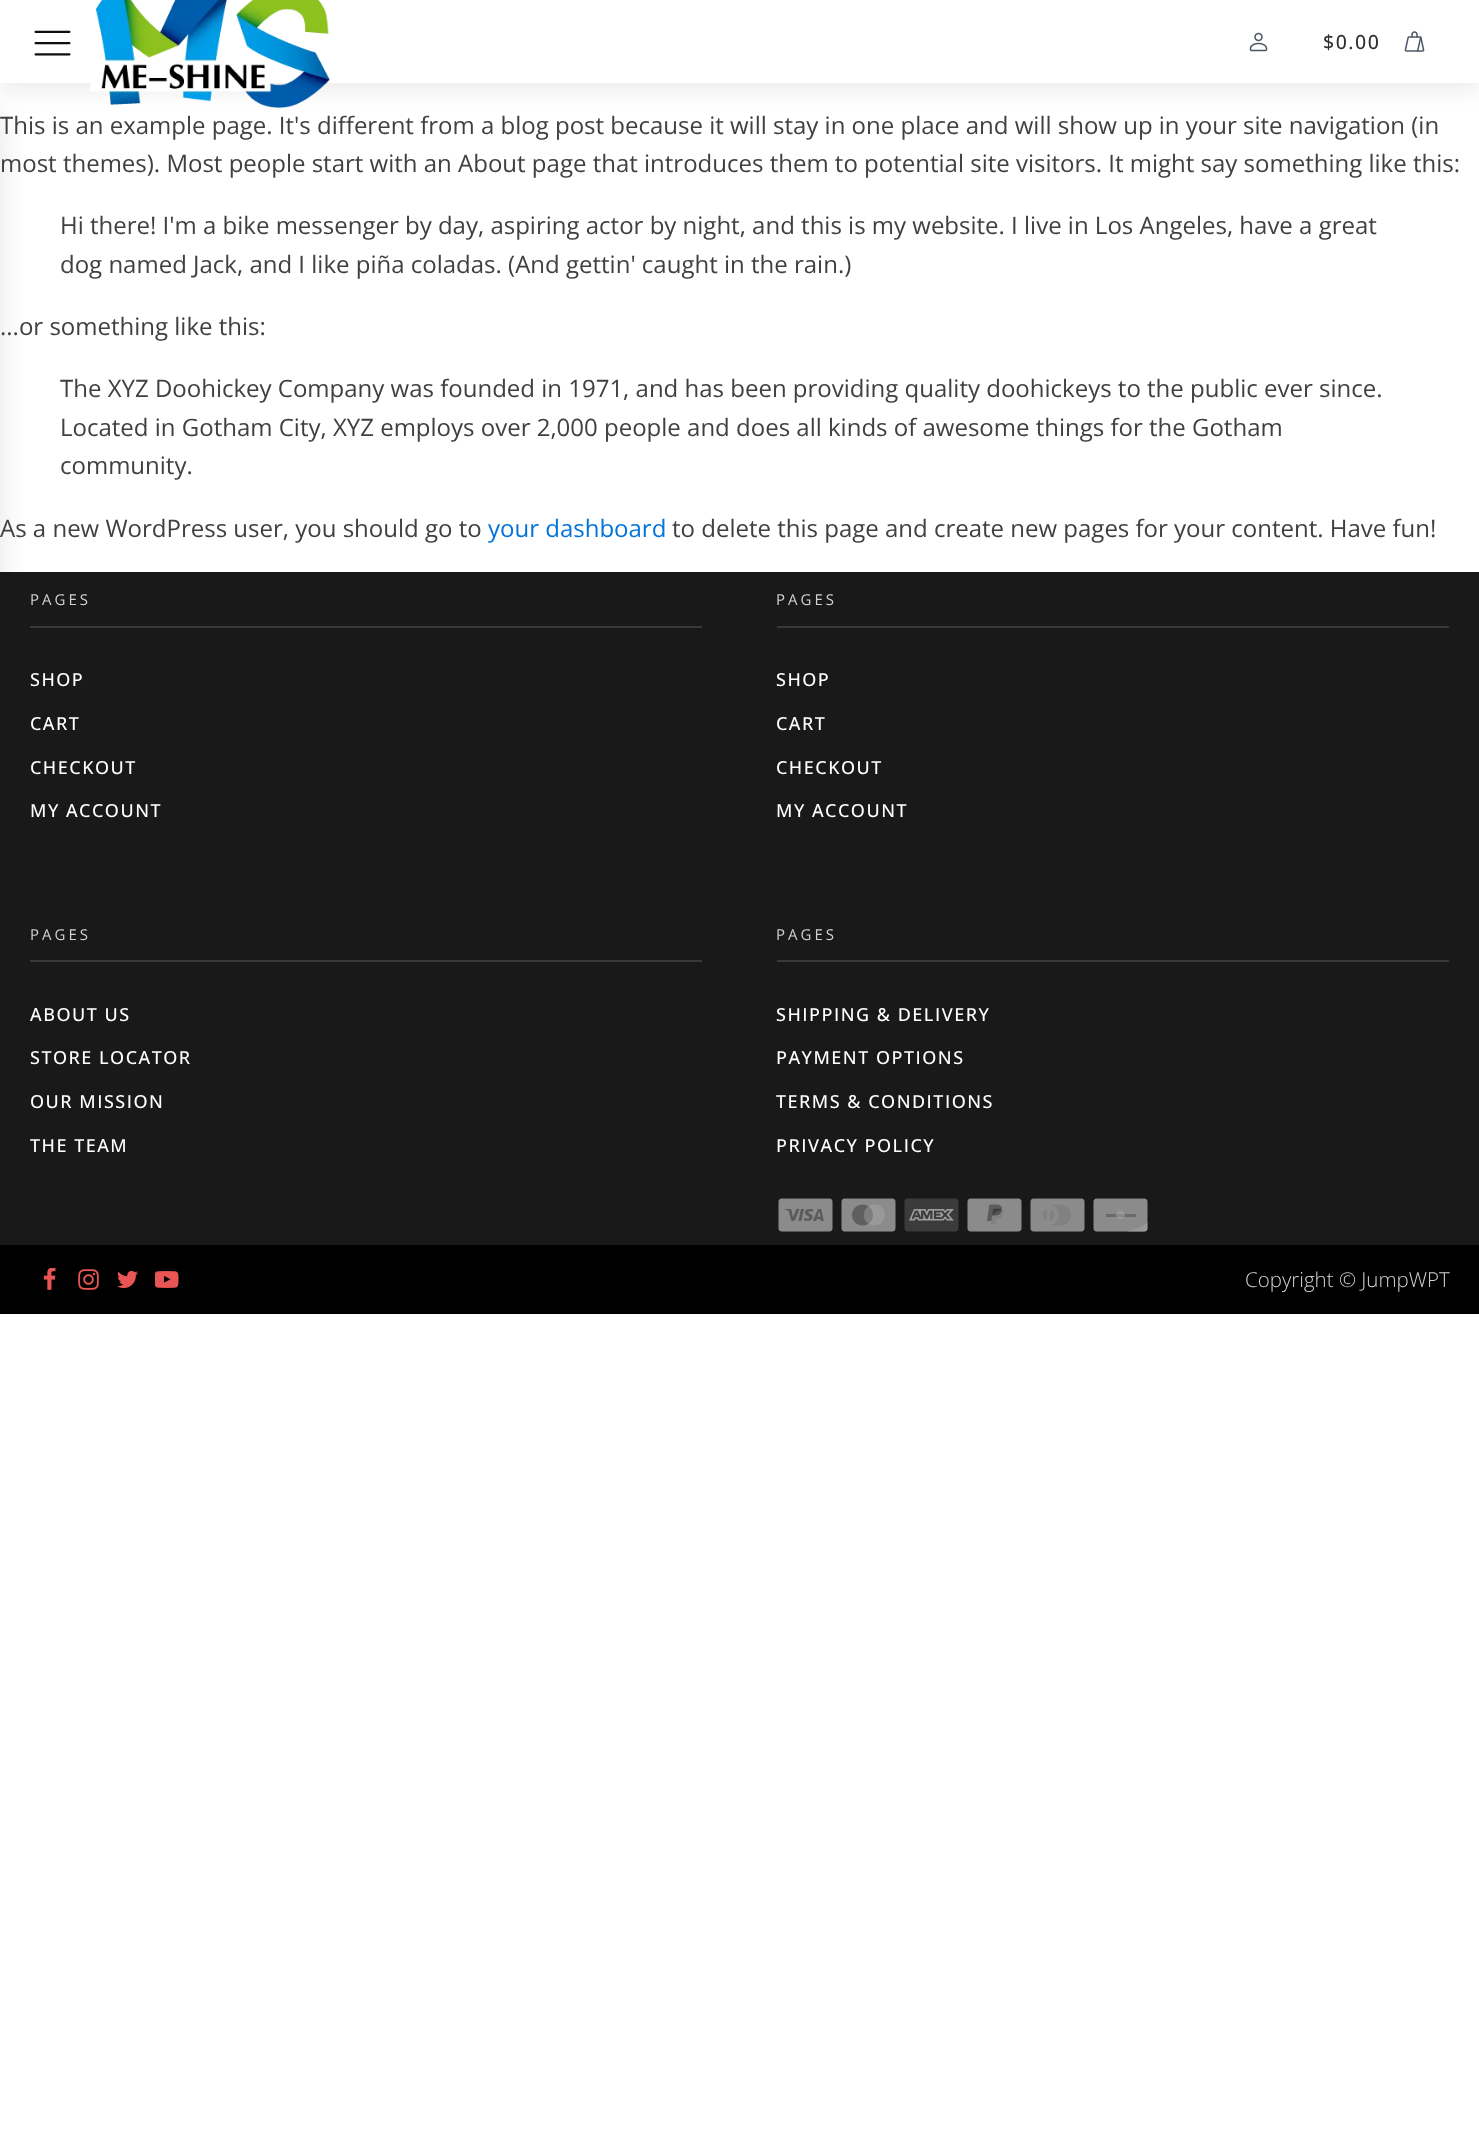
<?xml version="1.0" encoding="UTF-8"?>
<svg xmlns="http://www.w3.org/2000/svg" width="1479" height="2147">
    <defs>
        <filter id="blur1" x="-50%" y="-200%" width="200%" height="500%"><feGaussianBlur stdDeviation="11"/></filter>
        <filter id="blur2" x="-50%" y="-200%" width="200%" height="500%"><feGaussianBlur stdDeviation="15"/></filter>
    </defs>
    <rect width="100%" height="100%" fill="#FFFFFF"/>
    <rect x="0" y="8" width="1479" height="82" fill="#000000" fill-opacity="0.08" filter="url(#blur1)"/>
    <rect x="0" y="0" width="1479" height="83" fill="#FFFFFF"/>
    <image x="34" y="30" width="37" height="26" href="img_01.png"/>
    <image x="90" y="0" width="240" height="108" href="img_02.png"/>
    <image x="1249" y="32" width="19" height="20" href="img_03.png"/>
    <text x="1323" y="49" font-family="Open Sans" font-size="19.5" font-weight="500" letter-spacing="1.5" fill="#303030">$0.00</text>
    <image x="1404" y="31" width="21" height="21" href="img_04.png"/>
    <rect x="0" y="572" width="1479" height="673" fill="#191919"/>
    <rect x="30" y="626" width="672" height="2" fill="#383838"/>
    <rect x="-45" y="113" width="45" height="703" fill="#000000" fill-opacity="0.1" filter="url(#blur2)"/>
    <text font-family="Open Sans" font-size="24" fill="#404040">
        <tspan x="0" y="134">This is an example page. It's different from a blog post because it will stay in one place and will show up in your site navigation (in</tspan>
        <tspan x="0" y="172">most themes). Most people start with an About page that introduces them to potential site visitors. It might say something like this:</tspan>
    </text>
    <text font-family="Open Sans" font-size="24" fill="#404040">
        <tspan x="60" y="234">Hi there! I'm a bike messenger by day, aspiring actor by night, and this is my website. I live in Los Angeles, have a great</tspan>
        <tspan x="60" y="273">dog named Jack, and I like piña coladas. (And gettin' caught in the rain.)</tspan>
    </text>
    <text x="0" y="335" font-family="Open Sans" font-size="24" fill="#404040">...or something like this:</text>
    <text font-family="Open Sans" font-size="24" fill="#404040">
        <tspan x="60" y="397">The XYZ Doohickey Company was founded in 1971, and has been providing quality doohickeys to the public ever since.</tspan>
        <tspan x="60" y="436">Located in Gotham City, XYZ employs over 2,000 people and does all kinds of awesome things for the Gotham</tspan>
        <tspan x="60" y="474">community.</tspan>
    </text>
    <text x="0" y="537" font-family="Open Sans" font-size="24" fill="#404040">As a new WordPress user, you should go to</text>
    <text x="488" y="537" font-family="Open Sans" font-size="24" fill="#0074DB">your dashboard</text>
    <text x="672" y="537" font-family="Open Sans" font-size="24" fill="#404040">to delete this page and create new pages for your content. Have fun!</text>
    <text x="30" y="605" font-family="Open Sans" font-size="15" letter-spacing="3" fill="#D1D1D1">PAGES</text>
    <text x="30" y="686" font-family="Open Sans" font-size="18" font-weight="500" letter-spacing="1.5" fill="#FFFFFF">SHOP</text>
    <text x="30" y="730" font-family="Open Sans" font-size="18" font-weight="500" letter-spacing="1.5" fill="#FFFFFF">CART</text>
    <text x="30" y="774" font-family="Open Sans" font-size="18" font-weight="500" letter-spacing="1.5" fill="#FFFFFF">CHECKOUT</text>
    <text x="30" y="817" font-family="Open Sans" font-size="18" font-weight="500" letter-spacing="1.5" fill="#FFFFFF">MY ACCOUNT</text>
    <rect x="777" y="626" width="672" height="2" fill="#383838"/>
    <text x="776" y="605" font-family="Open Sans" font-size="15" letter-spacing="3" fill="#D1D1D1">PAGES</text>
    <text x="776" y="686" font-family="Open Sans" font-size="18" font-weight="500" letter-spacing="1.5" fill="#FFFFFF">SHOP</text>
    <text x="776" y="730" font-family="Open Sans" font-size="18" font-weight="500" letter-spacing="1.5" fill="#FFFFFF">CART</text>
    <text x="776" y="774" font-family="Open Sans" font-size="18" font-weight="500" letter-spacing="1.5" fill="#FFFFFF">CHECKOUT</text>
    <text x="776" y="817" font-family="Open Sans" font-size="18" font-weight="500" letter-spacing="1.5" fill="#FFFFFF">MY ACCOUNT</text>
    <rect x="30" y="960" width="672" height="2" fill="#383838"/>
    <text x="30" y="940" font-family="Open Sans" font-size="15" letter-spacing="3" fill="#D1D1D1">PAGES</text>
    <text x="30" y="1021" font-family="Open Sans" font-size="18" font-weight="500" letter-spacing="1.5" fill="#FFFFFF">ABOUT US</text>
    <text x="30" y="1064" font-family="Open Sans" font-size="18" font-weight="500" letter-spacing="1.5" fill="#FFFFFF">STORE LOCATOR</text>
    <text x="30" y="1108" font-family="Open Sans" font-size="18" font-weight="500" letter-spacing="1.5" fill="#FFFFFF">OUR MISSION</text>
    <text x="30" y="1152" font-family="Open Sans" font-size="18" font-weight="500" letter-spacing="1.5" fill="#FFFFFF">THE TEAM</text>
    <rect x="777" y="960" width="672" height="2" fill="#383838"/>
    <text x="776" y="940" font-family="Open Sans" font-size="15" letter-spacing="3" fill="#D1D1D1">PAGES</text>
    <text x="776" y="1021" font-family="Open Sans" font-size="18" font-weight="500" letter-spacing="1.5" fill="#FFFFFF">SHIPPING &amp; DELIVERY</text>
    <text x="776" y="1064" font-family="Open Sans" font-size="18" font-weight="500" letter-spacing="1.5" fill="#FFFFFF">PAYMENT OPTIONS</text>
    <text x="776" y="1108" font-family="Open Sans" font-size="18" font-weight="500" letter-spacing="1.5" fill="#FFFFFF">TERMS &amp; CONDITIONS</text>
    <text x="776" y="1152" font-family="Open Sans" font-size="18" font-weight="500" letter-spacing="1.5" fill="#FFFFFF">PRIVACY POLICY</text>
    <image x="778" y="1198" width="55" height="34" href="img_05.png"/>
    <image x="841" y="1198" width="55" height="34" href="img_06.png"/>
    <image x="904" y="1198" width="55" height="34" href="img_07.png"/>
    <image x="967" y="1198" width="55" height="34" href="img_08.png"/>
    <image x="1030" y="1198" width="55" height="34" href="img_09.png"/>
    <image x="1093" y="1198" width="55" height="34" href="img_10.png"/>
    <rect x="0" y="1245" width="1479" height="69" fill="#000000"/>
    <image x="43" y="1268" width="13" height="22" href="img_11.png"/>
    <image x="78" y="1269" width="21" height="21" href="img_12.png"/>
    <image x="117" y="1270" width="21" height="19" href="img_13.png"/>
    <image x="155" y="1271" width="24" height="17" href="img_14.png"/>
    <text x="1245" y="1287" font-family="Open Sans" font-size="20.5" font-weight="300" fill="#D1D1D1">Copyright © JumpWPT</text>
</svg>
